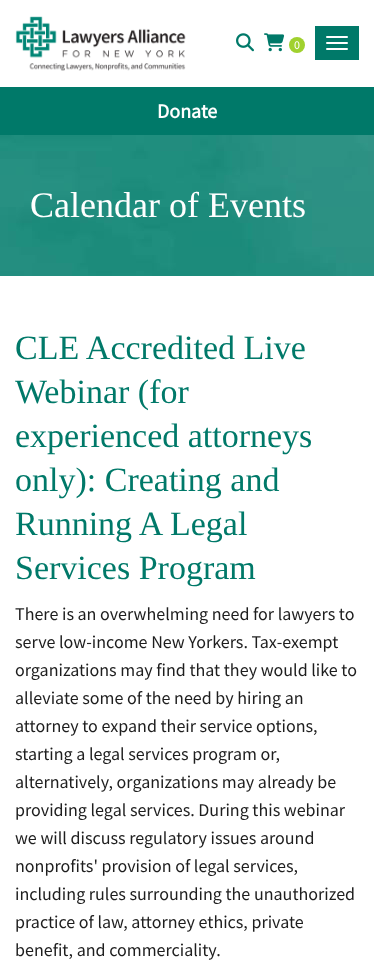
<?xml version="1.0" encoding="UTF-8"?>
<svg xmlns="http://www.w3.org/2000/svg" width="374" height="974">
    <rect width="100%" height="100%" fill="#FFFFFF"/>
    <image x="15" y="16" width="171" height="55" href="img_01.png"/>
    <image x="236" y="33" width="18" height="19" href="img_02.png"/>
    <image x="264" y="33" width="21" height="19" href="img_03.png"/>
    <circle cx="297" cy="45" r="8" fill="#A0D12E"/>
    <text x="294" y="49" font-family="Source Sans Pro" font-size="12" fill="#FFFFFF">0</text>
    <rect x="315" y="26" width="44" height="34" fill="#007969"/>
    <rect x="326" y="36" width="22" height="2" rx="1" fill="#FFFFFF"/>
    <rect x="326" y="42" width="22" height="2" rx="1" fill="#FFFFFF"/>
    <rect x="326" y="48" width="22" height="2" rx="1" fill="#FFFFFF"/>
    <rect x="0" y="87" width="374" height="48" fill="#007969"/>
    <text x="157" y="118" font-family="Source Sans Pro" font-size="20" font-weight="700" fill="#FFFFFF">Donate</text>
    <image x="0" y="135" width="374" height="141" href="img_04.png"/>
    <text x="30" y="217" font-family="Liberation Serif" font-size="36" fill="#FFFFFF">Calendar of Events</text>
    <text font-family="Liberation Serif" font-size="34" fill="#007969">
        <tspan x="15" y="359">CLE Accredited Live</tspan>
        <tspan x="15" y="403">Webinar (for</tspan>
        <tspan x="15" y="447">experienced attorneys</tspan>
        <tspan x="15" y="491">only): Creating and</tspan>
        <tspan x="15" y="535">Running A Legal</tspan>
        <tspan x="15" y="579">Services Program</tspan>
    </text>
    <text font-family="Source Sans Pro" font-size="18" fill="#1E1E1E">
        <tspan x="15" y="620">There is an overwhelming need for lawyers to</tspan>
        <tspan x="15" y="648">serve low-income New Yorkers. Tax-exempt</tspan>
        <tspan x="15" y="676">organizations may find that they would like to</tspan>
        <tspan x="15" y="704">alleviate some of the need by hiring an</tspan>
        <tspan x="15" y="732">attorney to expand their service options,</tspan>
        <tspan x="15" y="760">starting a legal services program or,</tspan>
        <tspan x="15" y="788">alternatively, organizations may already be</tspan>
        <tspan x="15" y="816">providing legal services. During this webinar</tspan>
        <tspan x="15" y="844">we will discuss regulatory issues around</tspan>
        <tspan x="15" y="872">nonprofits' provision of legal services,</tspan>
        <tspan x="15" y="900">including rules surrounding the unauthorized</tspan>
        <tspan x="15" y="928">practice of law, attorney ethics, private</tspan>
        <tspan x="15" y="956">benefit, and commerciality.</tspan>
    </text>
</svg>
